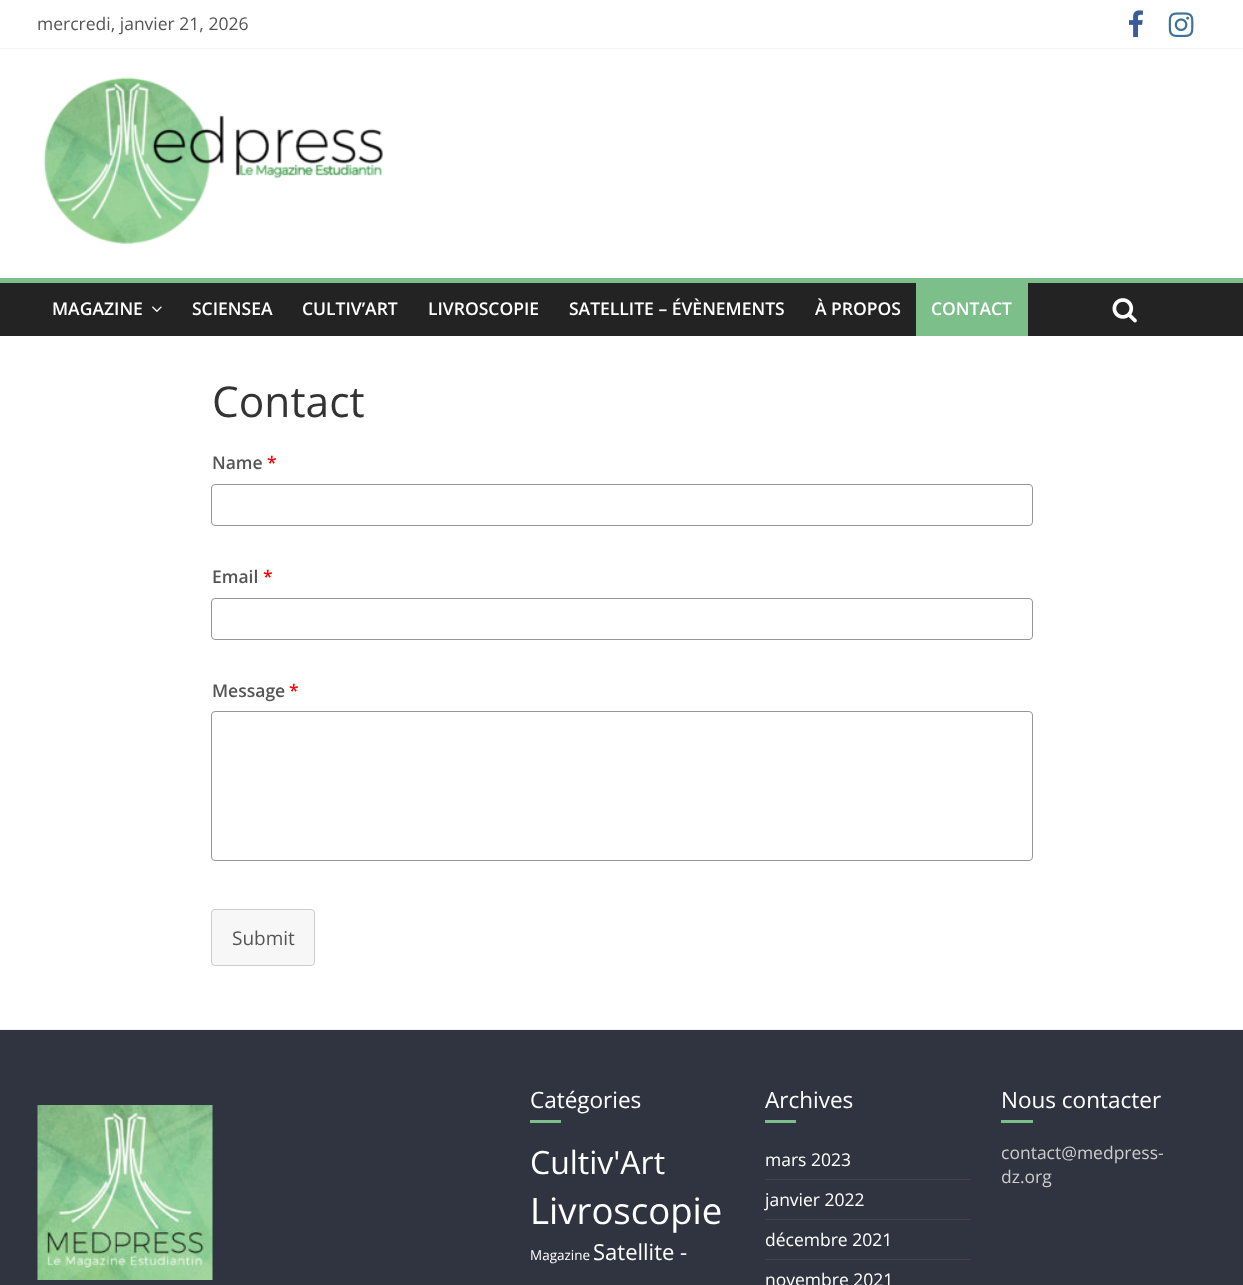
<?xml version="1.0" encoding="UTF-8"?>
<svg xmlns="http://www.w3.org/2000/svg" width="1243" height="1285">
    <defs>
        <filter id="blur1" x="-50%" y="-200%" width="200%" height="500%"><feGaussianBlur stdDeviation="1"/></filter>
    </defs>
    <rect width="100%" height="100%" fill="#FFFFFF"/>
    <rect x="0" y="0" width="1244" height="48" fill="#000000" fill-opacity="0.1" filter="url(#blur1)"/>
    <rect x="0" y="0" width="1243" height="48" fill="#FFFFFF"/>
    <text x="37" y="30" font-family="Open Sans" font-size="17.5" fill="#555555">mercredi, janvier 21, 2026</text>
    <image x="1129" y="10" width="14" height="28" href="img_01.png"/>
    <image x="1168" y="12" width="26" height="26" href="img_02.png"/>
    <image x="43" y="77" width="341" height="167" href="img_03.png"/>
    <rect x="0" y="283" width="1243" height="53" fill="#232323"/>
    <rect x="0" y="278" width="1243" height="5" fill="#7CBF8B"/>
    <text x="52" y="315" font-family="Open Sans" font-size="17.5" font-weight="600" fill="#FFFFFF">MAGAZINE</text>
    <image x="152" y="306" width="10" height="6" href="img_04.png"/>
    <text x="192" y="315" font-family="Open Sans" font-size="17.5" font-weight="600" fill="#FFFFFF">SCIENSEA</text>
    <text x="302" y="315" font-family="Open Sans" font-size="17.5" font-weight="600" fill="#FFFFFF">CULTIV’ART</text>
    <text x="428" y="315" font-family="Open Sans" font-size="17.5" font-weight="600" fill="#FFFFFF">LIVROSCOPIE</text>
    <text x="569" y="315" font-family="Open Sans" font-size="17.5" font-weight="600" fill="#FFFFFF">SATELLITE – ÉVÈNEMENTS</text>
    <text x="815" y="315" font-family="Open Sans" font-size="17.5" font-weight="600" fill="#FFFFFF">À PROPOS</text>
    <rect x="916" y="283" width="112" height="53" fill="#7CBF8B"/>
    <text x="931" y="315" font-family="Open Sans" font-size="17.5" font-weight="600" fill="#FFFFFF">CONTACT</text>
    <image x="1112" y="298" width="25" height="25" href="img_05.png"/>
    <text x="212" y="417" font-family="Open Sans" font-size="42.5" fill="#333333">Contact</text>
    <text x="212" y="469" font-family="Open Sans" font-size="17.5" font-weight="600" fill="#555555">Name</text>
    <text x="267" y="469" font-family="Open Sans" font-size="17.5" font-weight="600" fill="#FF0000">*</text>
    <rect x="211.5" y="484.5" width="821" height="41" rx="3.5" fill="none" stroke="#969696"/>
    <text x="212" y="583" font-family="Open Sans" font-size="17.5" font-weight="600" fill="#555555">Email</text>
    <text x="263" y="583" font-family="Open Sans" font-size="17.5" font-weight="600" fill="#FF0000">*</text>
    <rect x="211.5" y="598.5" width="821" height="41" rx="3.5" fill="none" stroke="#969696"/>
    <text x="212" y="697" font-family="Open Sans" font-size="17.5" font-weight="600" fill="#555555">Message</text>
    <text x="289" y="697" font-family="Open Sans" font-size="17.5" font-weight="600" fill="#FF0000">*</text>
    <rect x="211.5" y="711.5" width="821" height="149" rx="3.5" fill="none" stroke="#969696"/>
    <rect x="211.5" y="909.5" width="103" height="56" rx="3.5" fill="#F7F7F7" stroke="#CCCCCC"/>
    <text x="232" y="945" font-family="Open Sans" font-size="19" fill="#555555">Submit</text>
    <rect x="0" y="1030" width="1243" height="255" fill="#303440"/>
    <rect x="0" y="1029" width="1243" height="1" fill="#F2F2F2"/>
    <image x="37" y="1105" width="176" height="175" href="img_06.png"/>
    <text x="530" y="1108" font-family="Open Sans" font-size="22.5" fill="#FFFFFF">Catégories</text>
    <rect x="530" y="1120" width="31" height="3" fill="#7CBF8B"/>
    <text x="530" y="1174" font-family="Open Sans" font-size="32" fill="#FFFFFF">Cultiv'Art</text>
    <text x="530" y="1224" font-family="Open Sans" font-size="36.5" fill="#FFFFFF">Livroscopie</text>
    <text x="530" y="1260" font-family="Open Sans" font-size="13.5" fill="#FFFFFF">Magazine</text>
    <text x="593" y="1260" font-family="Open Sans" font-size="22" fill="#FFFFFF">Satellite -</text>
    <text x="765" y="1108" font-family="Open Sans" font-size="22.5" fill="#FFFFFF">Archives</text>
    <rect x="765" y="1120" width="31" height="3" fill="#7CBF8B"/>
    <rect x="765" y="1179" width="205" height="1" fill="#444444"/>
    <text x="765" y="1166" font-family="Open Sans" font-size="17.5" fill="#FFFFFF">mars 2023</text>
    <rect x="765" y="1219" width="205" height="1" fill="#444444"/>
    <text x="765" y="1206" font-family="Open Sans" font-size="17.5" fill="#FFFFFF">janvier 2022</text>
    <rect x="765" y="1259" width="205" height="1" fill="#444444"/>
    <text x="765" y="1246" font-family="Open Sans" font-size="17.5" fill="#FFFFFF">décembre 2021</text>
    <text x="765" y="1286" font-family="Open Sans" font-size="17.5" fill="#FFFFFF">novembre 2021</text>
    <text x="1001" y="1108" font-family="Open Sans" font-size="22.5" fill="#FFFFFF">Nous contacter</text>
    <rect x="1001" y="1120" width="32" height="3" fill="#7CBF8B"/>
    <text font-family="Open Sans" font-size="17.5" fill="#CCCCCC">
        <tspan x="1001" y="1159">contact@medpress-</tspan>
        <tspan x="1001" y="1183">dz.org</tspan>
    </text>
</svg>
